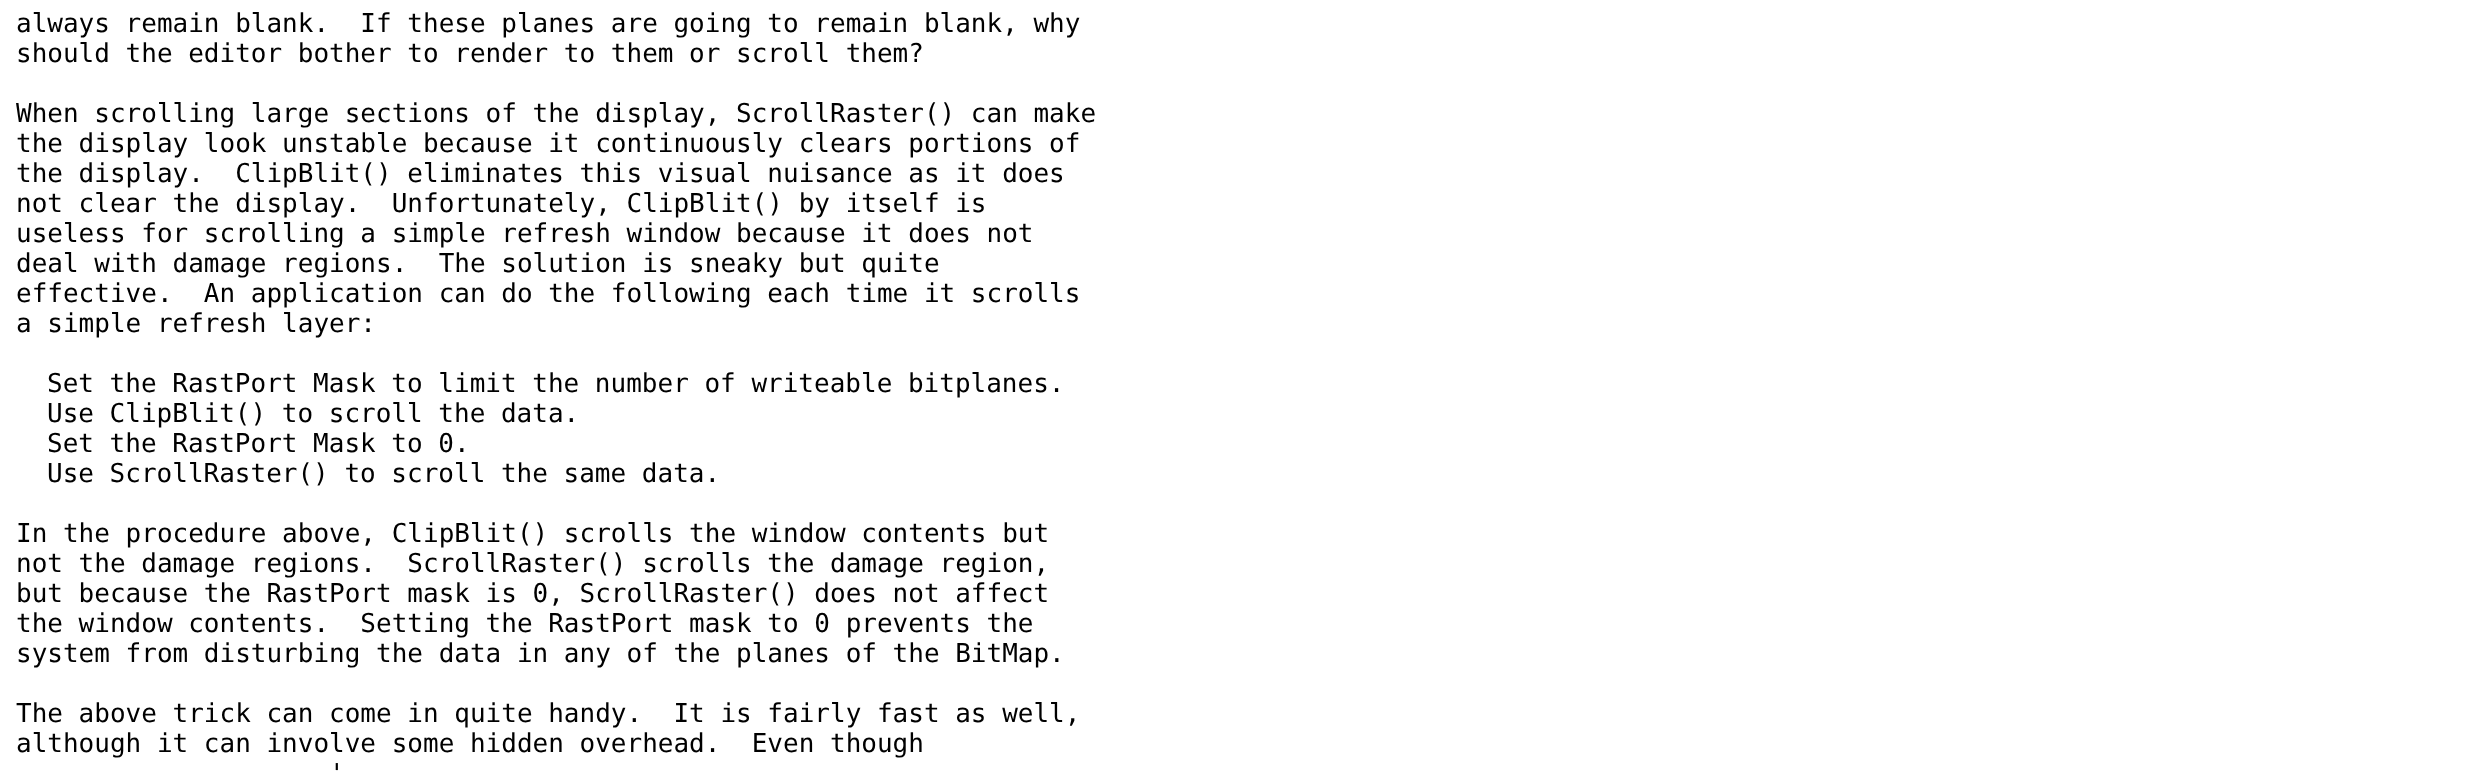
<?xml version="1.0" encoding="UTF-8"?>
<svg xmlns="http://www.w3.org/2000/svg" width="2480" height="776">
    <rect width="100%" height="100%" fill="#FFFFFF"/>
    <text font-family="DejaVu Sans Mono" font-size="26" fill="#000000" xml:space="preserve"><tspan x="16" y="32">always remain blank.  If these planes are going to remain blank, why</tspan><tspan x="16" y="62">should the editor bother to render to them or scroll them?</tspan></text>
    <text font-family="DejaVu Sans Mono" font-size="26" fill="#000000" xml:space="preserve"><tspan x="16" y="122">When scrolling large sections of the display, ScrollRaster() can make</tspan><tspan x="16" y="152">the display look unstable because it continuously clears portions of</tspan><tspan x="16" y="182">the display.  ClipBlit() eliminates this visual nuisance as it does</tspan><tspan x="16" y="212">not clear the display.  Unfortunately, ClipBlit() by itself is</tspan><tspan x="16" y="242">useless for scrolling a simple refresh window because it does not</tspan><tspan x="16" y="272">deal with damage regions.  The solution is sneaky but quite</tspan><tspan x="16" y="302">effective.  An application can do the following each time it scrolls</tspan><tspan x="16" y="332">a simple refresh layer:</tspan></text>
    <text font-family="DejaVu Sans Mono" font-size="26" fill="#000000">
        <tspan x="47" y="392">Set the RastPort Mask to limit the number of writeable bitplanes.</tspan>
        <tspan x="47" y="422">Use ClipBlit() to scroll the data.</tspan>
        <tspan x="47" y="452">Set the RastPort Mask to 0.</tspan>
        <tspan x="47" y="482">Use ScrollRaster() to scroll the same data.</tspan>
    </text>
    <text font-family="DejaVu Sans Mono" font-size="26" fill="#000000" xml:space="preserve"><tspan x="16" y="542">In the procedure above, ClipBlit() scrolls the window contents but</tspan><tspan x="16" y="572">not the damage regions.  ScrollRaster() scrolls the damage region,</tspan><tspan x="16" y="602">but because the RastPort mask is 0, ScrollRaster() does not affect</tspan><tspan x="16" y="632">the window contents.  Setting the RastPort mask to 0 prevents the</tspan><tspan x="16" y="662">system from disturbing the data in any of the planes of the BitMap.</tspan></text>
    <text font-family="DejaVu Sans Mono" font-size="26" fill="#000000" xml:space="preserve"><tspan x="16" y="722">The above trick can come in quite handy.  It is fairly fast as well,</tspan><tspan x="16" y="752">although it can involve some hidden overhead.  Even though</tspan></text>
    <text x="329" y="782" font-family="DejaVu Sans Mono" font-size="26" fill="#000000">'</text>
</svg>
